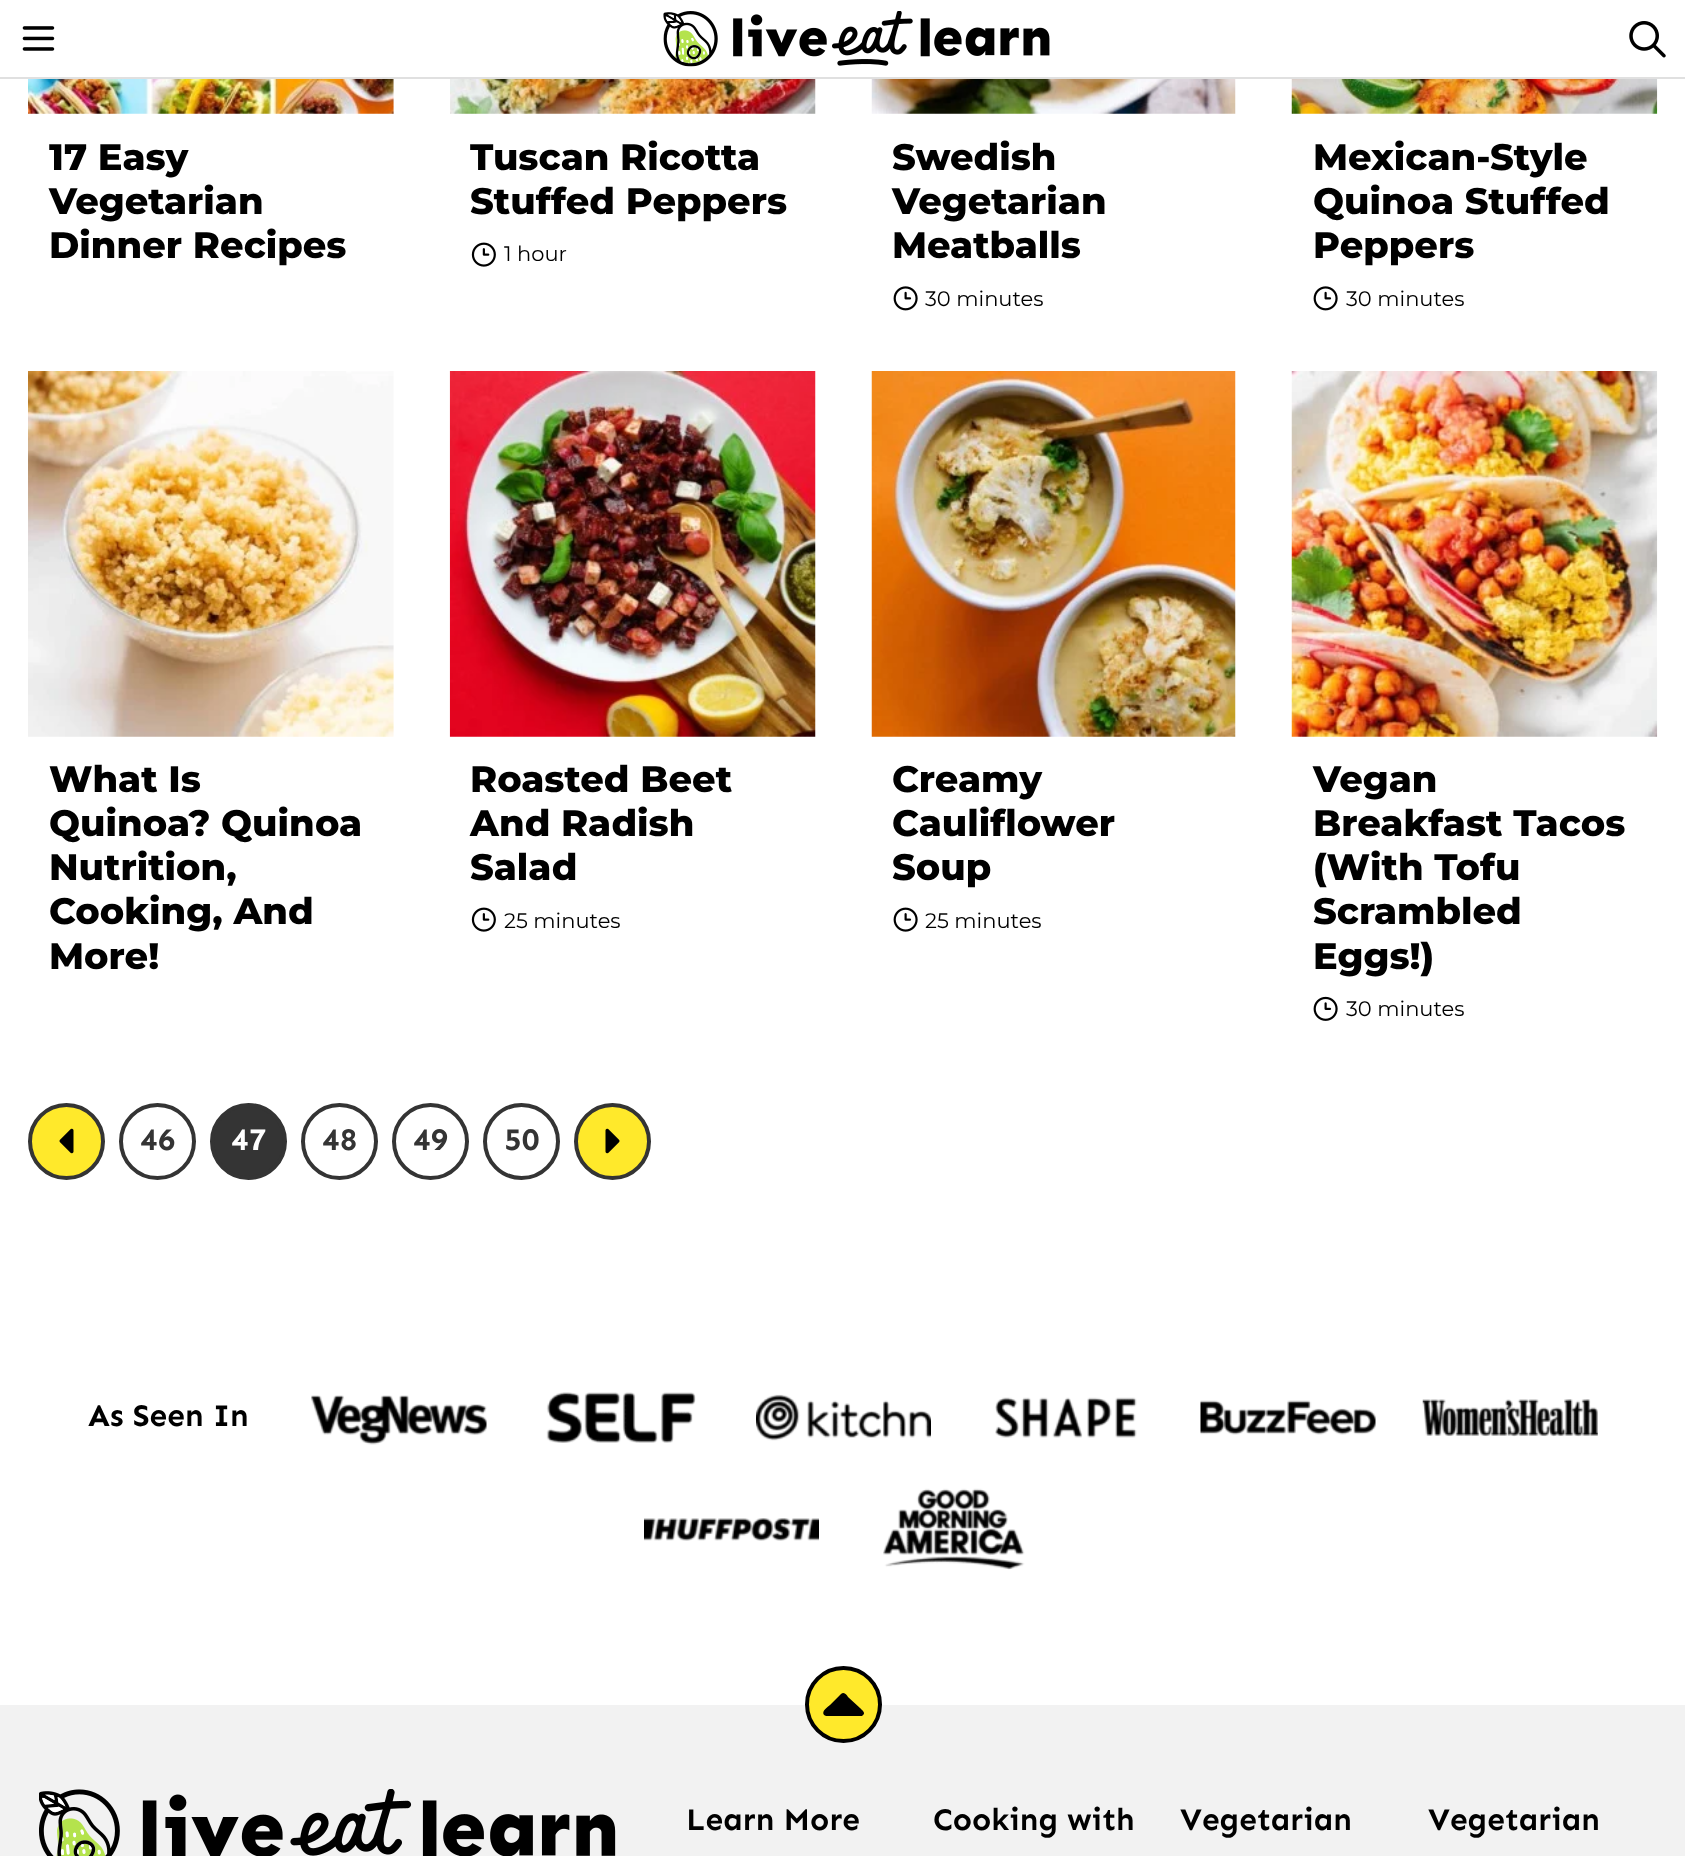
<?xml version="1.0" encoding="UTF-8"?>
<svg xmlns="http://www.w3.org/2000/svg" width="1685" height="1856">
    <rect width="100%" height="100%" fill="#FFFFFF"/>
    <rect x="0" y="77" width="1685" height="2" fill="#E0E0E0"/>
    <image x="22" y="26" width="33" height="25" href="img_01.png"/>
    <image x="663" y="11" width="387" height="56" href="img_02.png"/>
    <image x="1629" y="21" width="37" height="37" href="img_03.png"/>
    <image x="28" y="79" width="366" height="35" href="img_04.png"/>
    <text font-family="Montserrat" font-size="36.75" font-weight="800" fill="#000000">
        <tspan x="49" y="170">17 Easy</tspan>
        <tspan x="49" y="214">Vegetarian</tspan>
        <tspan x="49" y="258">Dinner Recipes</tspan>
    </text>
    <image x="450" y="79" width="366" height="35" href="img_05.png"/>
    <text font-family="Montserrat" font-size="36.75" font-weight="800" fill="#000000">
        <tspan x="470" y="170">Tuscan Ricotta</tspan>
        <tspan x="470" y="214">Stuffed Peppers</tspan>
    </text>
    <image x="471" y="242" width="25" height="25" href="img_06.png"/>
    <text x="504" y="261" font-family="Montserrat" font-size="21" fill="#000000">1 hour</text>
    <image x="871" y="79" width="365" height="35" href="img_07.png"/>
    <text font-family="Montserrat" font-size="36.75" font-weight="800" fill="#000000">
        <tspan x="892" y="170">Swedish</tspan>
        <tspan x="892" y="214">Vegetarian</tspan>
        <tspan x="892" y="258">Meatballs</tspan>
    </text>
    <image x="893" y="286" width="25" height="25" href="img_08.png"/>
    <text x="925" y="306" font-family="Montserrat" font-size="21" fill="#000000">30 minutes</text>
    <image x="1291" y="79" width="367" height="35" href="img_09.png"/>
    <text font-family="Montserrat" font-size="36.75" font-weight="800" fill="#000000">
        <tspan x="1313" y="170">Mexican-Style</tspan>
        <tspan x="1313" y="214">Quinoa Stuffed</tspan>
        <tspan x="1313" y="258">Peppers</tspan>
    </text>
    <image x="1313" y="286" width="25" height="25" href="img_08.png"/>
    <text x="1346" y="306" font-family="Montserrat" font-size="21" fill="#000000">30 minutes</text>
    <image x="28" y="371" width="366" height="366" href="img_10.png"/>
    <text font-family="Montserrat" font-size="36.75" font-weight="800" fill="#000000">
        <tspan x="49" y="792">What Is</tspan>
        <tspan x="49" y="836">Quinoa? Quinoa</tspan>
        <tspan x="49" y="880">Nutrition,</tspan>
        <tspan x="49" y="924">Cooking, And</tspan>
        <tspan x="49" y="969">More!</tspan>
    </text>
    <image x="449" y="371" width="367" height="366" href="img_11.png"/>
    <text font-family="Montserrat" font-size="36.75" font-weight="800" fill="#000000">
        <tspan x="470" y="792">Roasted Beet</tspan>
        <tspan x="470" y="836">And Radish</tspan>
        <tspan x="470" y="880">Salad</tspan>
    </text>
    <image x="471" y="907" width="25" height="25" href="img_06.png"/>
    <text x="504" y="928" font-family="Montserrat" font-size="21" fill="#000000">25 minutes</text>
    <image x="871" y="371" width="365" height="366" href="img_12.png"/>
    <text font-family="Montserrat" font-size="36.75" font-weight="800" fill="#000000">
        <tspan x="892" y="792">Creamy</tspan>
        <tspan x="892" y="836">Cauliflower</tspan>
        <tspan x="892" y="880">Soup</tspan>
    </text>
    <image x="893" y="907" width="25" height="25" href="img_13.png"/>
    <text x="925" y="928" font-family="Montserrat" font-size="21" fill="#000000">25 minutes</text>
    <image x="1291" y="371" width="367" height="366" href="img_14.png"/>
    <text font-family="Montserrat" font-size="36.75" font-weight="800" fill="#000000">
        <tspan x="1313" y="792">Vegan</tspan>
        <tspan x="1313" y="836">Breakfast Tacos</tspan>
        <tspan x="1313" y="880">(With Tofu</tspan>
        <tspan x="1313" y="924">Scrambled</tspan>
        <tspan x="1313" y="969">Eggs!)</tspan>
    </text>
    <image x="1313" y="996" width="25" height="25" href="img_15.png"/>
    <text x="1346" y="1016" font-family="Montserrat" font-size="21" fill="#000000">30 minutes</text>
    <circle cx="66.5" cy="1141.5" r="36.5" fill="#FFE92B" stroke="#343434" stroke-width="4"/>
    <image x="59" y="1128" width="15" height="26" href="img_16.png"/>
    <circle cx="157.5" cy="1141.5" r="36.5" fill="none" stroke="#343434" stroke-width="4"/>
    <text x="140" y="1150" font-family="Sen" font-size="31.5" font-weight="700" fill="#343434">46</text>
    <circle cx="248.5" cy="1141.5" r="36.5" fill="#343434" stroke="#343434" stroke-width="4"/>
    <text x="231" y="1150" font-family="Sen" font-size="31.5" font-weight="700" fill="#FFFFFF">47</text>
    <circle cx="339.5" cy="1141.5" r="36.5" fill="none" stroke="#343434" stroke-width="4"/>
    <text x="322" y="1150" font-family="Sen" font-size="31.5" font-weight="700" fill="#343434">48</text>
    <circle cx="430.5" cy="1141.5" r="36.5" fill="none" stroke="#343434" stroke-width="4"/>
    <text x="413" y="1150" font-family="Sen" font-size="31.5" font-weight="700" fill="#343434">49</text>
    <circle cx="521.5" cy="1141.5" r="36.5" fill="none" stroke="#343434" stroke-width="4"/>
    <text x="504" y="1150" font-family="Sen" font-size="31.5" font-weight="700" fill="#343434">50</text>
    <circle cx="612.5" cy="1141.5" r="36.5" fill="#FFE92B" stroke="#343434" stroke-width="4"/>
    <image x="605" y="1128" width="15" height="26" href="img_17.png"/>
    <text x="88" y="1426" font-family="Sen" font-size="31.5" font-weight="700" fill="#000000">As Seen In</text>
    <image x="311" y="1395" width="176" height="50" href="img_18.png"/>
    <image x="546" y="1392" width="150" height="51" href="img_19.png"/>
    <image x="756" y="1394" width="175" height="47" href="img_20.png"/>
    <image x="995" y="1397" width="142" height="41" href="img_21.png"/>
    <image x="1200" y="1400" width="176" height="35" href="img_22.png"/>
    <image x="1422" y="1399" width="176" height="38" href="img_23.png"/>
    <image x="644" y="1518" width="175" height="23" href="img_24.png"/>
    <image x="883" y="1488" width="142" height="82" href="img_25.png"/>
    <rect x="0" y="1705" width="1685" height="151" fill="#F2F2F2"/>
    <circle cx="843.5" cy="1704.5" r="36.5" fill="#FFE92B" stroke="#000000" stroke-width="4"/>
    <path d="M 841 1694 C 844 1691 847 1695 848 1697 L 860 1708 C 862 1710 866 1713 863 1715 L 862 1716 H 826 L 824 1715 C 821 1711 828 1707 830 1705 Z" fill="#000000" fill-rule="evenodd"/>
    <image x="39" y="1789" width="577" height="67" href="img_26.png"/>
    <text x="686" y="1830" font-family="Sen" font-size="31.5" font-weight="700" fill="#000000">Learn More</text>
    <text x="933" y="1830" font-family="Sen" font-size="31.5" font-weight="700" fill="#000000">Cooking with</text>
    <text x="1180" y="1830" font-family="Sen" font-size="31.5" font-weight="700" fill="#000000">Vegetarian</text>
    <text x="1428" y="1830" font-family="Sen" font-size="31.5" font-weight="700" fill="#000000">Vegetarian</text>
</svg>
